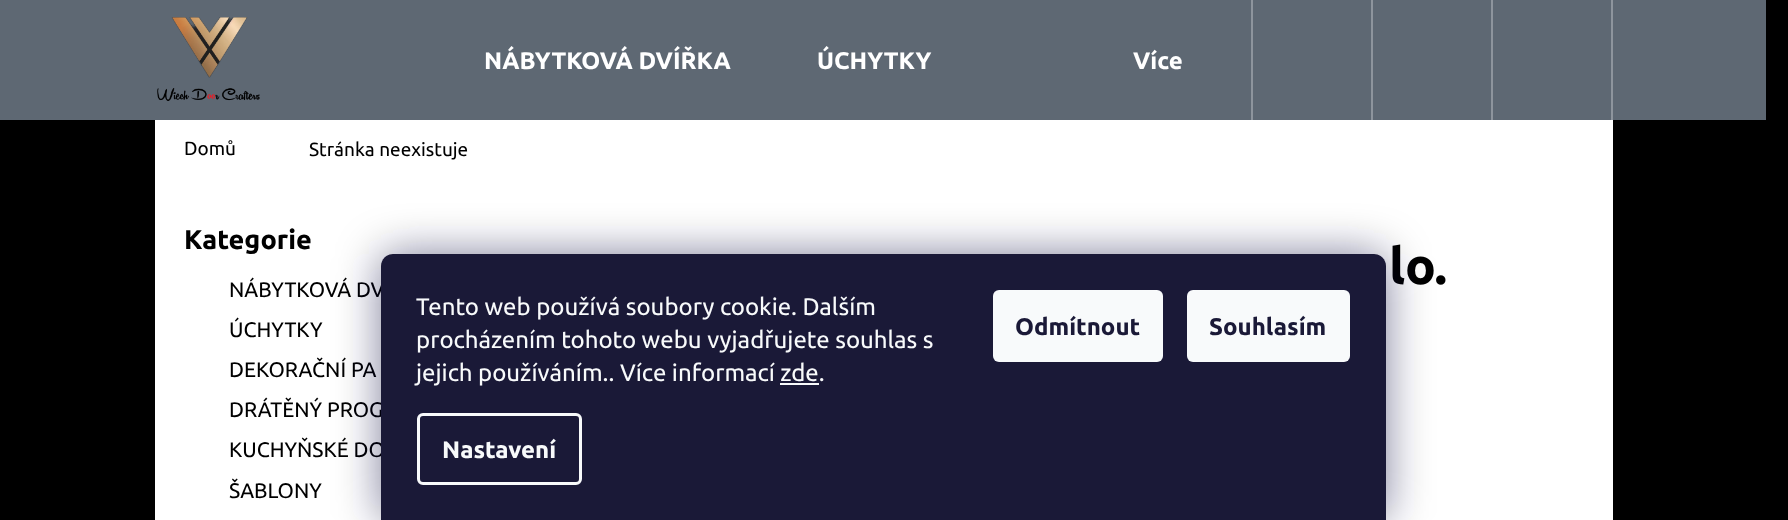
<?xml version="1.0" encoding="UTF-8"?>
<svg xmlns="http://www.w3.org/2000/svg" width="1788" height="520">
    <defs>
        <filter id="blur1" x="-50%" y="-200%" width="200%" height="500%"><feGaussianBlur stdDeviation="22.5"/></filter>
    </defs>
    <rect width="100%" height="100%" fill="#000000"/>
    <rect x="0" y="0" width="1766" height="120" fill="#5E6873"/>
    <image x="157" y="17" width="103" height="84" href="img_01.png"/>
    <text x="484" y="69" font-family="Ubuntu" font-size="24" font-weight="700" fill="#FFFFFF">NÁBYTKOVÁ DVÍŘKA</text>
    <text x="817" y="69" font-family="Ubuntu" font-size="24" font-weight="700" fill="#FFFFFF">ÚCHYTKY</text>
    <text x="1133" y="69" font-family="Ubuntu" font-size="24" font-weight="700" fill="#FFFFFF">Více</text>
    <rect x="1611" y="0" width="2" height="120" fill="#8E959D"/>
    <rect x="1251" y="0" width="2" height="120" fill="#8E959D"/>
    <rect x="1371" y="0" width="2" height="120" fill="#8E959D"/>
    <rect x="1491" y="0" width="2" height="120" fill="#8E959D"/>
    <rect x="155" y="120" width="1458" height="400" fill="#FFFFFF"/>
    <text x="184" y="155" font-family="Ubuntu" font-size="19" fill="#000000">Domů</text>
    <text x="309" y="156" font-family="Ubuntu" font-size="19" fill="#000000">Stránka neexistuje</text>
    <text x="184" y="249" font-family="Ubuntu" font-size="27" font-weight="700" fill="#000000">Kategorie</text>
    <text font-family="Ubuntu" font-size="21" fill="#000000">
        <tspan x="229" y="297">NÁBYTKOVÁ DV</tspan>
        <tspan x="229" y="337">ÚCHYTKY</tspan>
        <tspan x="229" y="377">DEKORAČNÍ PA</tspan>
        <tspan x="229" y="417">DRÁTĚNÝ PROG</tspan>
        <tspan x="229" y="457">KUCHYŇSKÉ DO</tspan>
        <tspan x="229" y="498">ŠABLONY</tspan>
    </text>
    <text x="1389" y="284" font-family="Ubuntu" font-size="51" font-weight="700" fill="#000000">lo.</text>
    <rect x="381" y="254" width="1005" height="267" rx="12" fill="#1B1939" fill-opacity="0.5" filter="url(#blur1)"/>
    <path d="M 393 254 H 1374 C 1380.5 254 1386 259.5 1386 266 V 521 H 381 V 266 C 381 259.5 386.5 254 393 254 Z" fill="#1A1937"/>
    <text font-family="Ubuntu" font-size="24" fill="#F8FAFB">
        <tspan x="416" y="315">Tento web používá soubory cookie. Dalším</tspan>
        <tspan x="416" y="348">procházením tohoto webu vyjadřujete souhlas s</tspan>
        <tspan x="416" y="381">jejich používáním.. Více informací zde.</tspan>
    </text>
    <rect x="780" y="383" width="39" height="2" fill="#F8FAFB"/>
    <rect x="418.5" y="414.5" width="162" height="69" rx="4.5" fill="none" stroke="#F8FAFB" stroke-width="3"/>
    <text x="442" y="458" font-family="Ubuntu" font-size="24" font-weight="700" fill="#F8FAFB">Nastavení</text>
    <rect x="993" y="290" width="170" height="72" rx="6" fill="#F8FAFB"/>
    <text x="1015" y="335" font-family="Ubuntu" font-size="24" font-weight="700" fill="#1A1937">Odmítnout</text>
    <rect x="1187" y="290" width="163" height="72" rx="6" fill="#F8FAFB"/>
    <text x="1209" y="335" font-family="Ubuntu" font-size="24" font-weight="700" fill="#1A1937">Souhlasím</text>
</svg>
